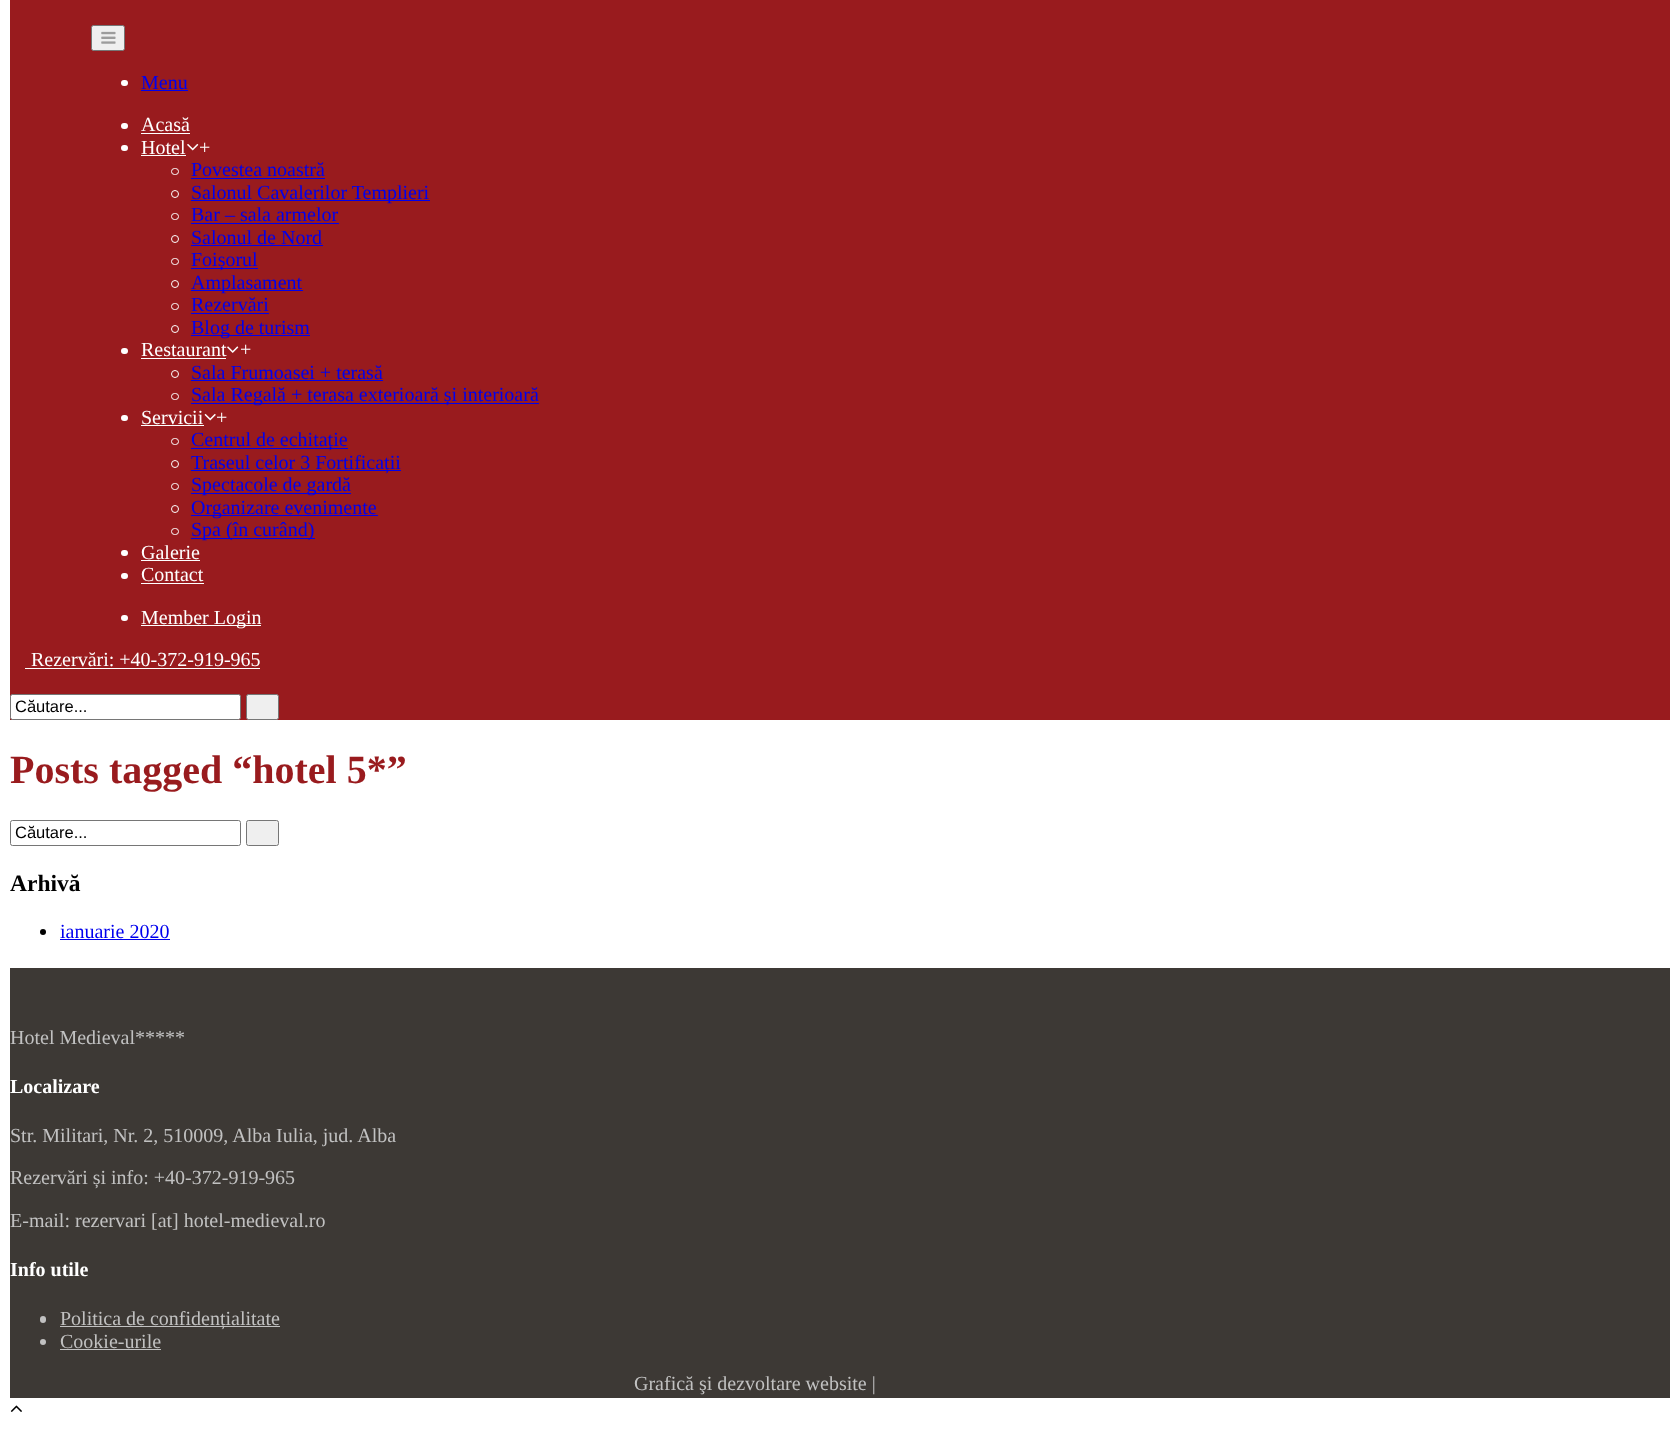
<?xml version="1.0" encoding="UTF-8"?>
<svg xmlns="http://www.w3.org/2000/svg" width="1680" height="1429">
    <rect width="100%" height="100%" fill="#FFFFFF"/>
    <rect x="10" y="0" width="1660" height="720" fill="#991B1E"/>
    <rect x="91.5" y="25.5" width="33" height="25" rx="2" fill="#EFEFEF" stroke="#767676"/>
    <image x="101" y="31" width="15" height="13" href="img_01.png"/>
    <rect x="121" y="80" width="7" height="6" rx="3" fill="#FFFFFF"/>
    <text x="141" y="89" font-family="Liberation Serif" font-size="20" fill="#0000EE">Menu</text>
    <rect x="141" y="90" width="47" height="1" fill="#0000EE"/>
    <rect x="121" y="123" width="7" height="6" rx="3" fill="#FFFFFF"/>
    <text x="141" y="131" font-family="Liberation Serif" font-size="20" fill="#FFFFFF">Acasă</text>
    <rect x="141" y="133" width="49" height="1" fill="#FFFFFF"/>
    <rect x="121" y="145" width="7" height="6" rx="3" fill="#FFFFFF"/>
    <text x="141" y="154" font-family="Liberation Serif" font-size="20" fill="#FFFFFF">Hotel</text>
    <rect x="141" y="155" width="45" height="1" fill="#FFFFFF"/>
    <image x="187" y="143" width="12" height="8" href="img_02.png"/>
    <text x="199" y="154" font-family="Liberation Serif" font-size="20" fill="#FFFFFF">+</text>
    <rect x="171.5" y="168.5" width="7" height="6" rx="3" fill="none" stroke="#FFFFFF"/>
    <text x="191" y="176" font-family="Liberation Serif" font-size="20" fill="#0000EE">Povestea noastră</text>
    <rect x="191" y="178" width="134" height="1" fill="#0000EE"/>
    <circle cx="175" cy="194" r="3.5" fill="none" stroke="#FFFFFF"/>
    <rect x="191" y="200" width="239" height="1" fill="#0000EE"/>
    <text x="191" y="199" font-family="Liberation Serif" font-size="20" fill="#0000EE">Salonul Cavalerilor Templieri</text>
    <rect x="171.5" y="213.5" width="7" height="6" rx="3" fill="none" stroke="#FFFFFF"/>
    <text x="191" y="221" font-family="Liberation Serif" font-size="20" fill="#0000EE">Bar – sala armelor</text>
    <rect x="191" y="223" width="148" height="1" fill="#0000EE"/>
    <circle cx="175" cy="239" r="3.5" fill="none" stroke="#FFFFFF"/>
    <text x="191" y="244" font-family="Liberation Serif" font-size="20" fill="#0000EE">Salonul de Nord</text>
    <rect x="191" y="245" width="132" height="1" fill="#0000EE"/>
    <rect x="171.5" y="258.5" width="7" height="6" rx="3" fill="none" stroke="#FFFFFF"/>
    <rect x="191" y="268" width="67" height="1" fill="#0000EE"/>
    <text x="191" y="266" font-family="Liberation Serif" font-size="20" fill="#0000EE">Foișorul</text>
    <circle cx="175" cy="284" r="3.5" fill="none" stroke="#FFFFFF"/>
    <rect x="191" y="290" width="112" height="1" fill="#0000EE"/>
    <text x="191" y="289" font-family="Liberation Serif" font-size="20" fill="#0000EE">Amplasament</text>
    <rect x="171.5" y="303.5" width="7" height="6" rx="3" fill="none" stroke="#FFFFFF"/>
    <text x="191" y="311" font-family="Liberation Serif" font-size="20" fill="#0000EE">Rezervări</text>
    <rect x="191" y="313" width="78" height="1" fill="#0000EE"/>
    <circle cx="175" cy="329" r="3.5" fill="none" stroke="#FFFFFF"/>
    <rect x="191" y="335" width="119" height="1" fill="#0000EE"/>
    <text x="191" y="334" font-family="Liberation Serif" font-size="20" fill="#0000EE">Blog de turism</text>
    <rect x="121" y="348" width="7" height="6" rx="3" fill="#FFFFFF"/>
    <text x="141" y="356" font-family="Liberation Serif" font-size="20" fill="#FFFFFF">Restaurant</text>
    <rect x="141" y="358" width="85" height="1" fill="#FFFFFF"/>
    <image x="227" y="346" width="12" height="7" href="img_03.png"/>
    <text x="240" y="356" font-family="Liberation Serif" font-size="20" fill="#FFFFFF">+</text>
    <circle cx="175" cy="374" r="3.5" fill="none" stroke="#FFFFFF"/>
    <text x="191" y="379" font-family="Liberation Serif" font-size="20" fill="#0000EE">Sala Frumoasei + terasă</text>
    <rect x="191" y="380" width="192" height="1" fill="#0000EE"/>
    <rect x="171.5" y="393.5" width="7" height="6" rx="3" fill="none" stroke="#FFFFFF"/>
    <rect x="191" y="403" width="348" height="1" fill="#0000EE"/>
    <text x="191" y="401" font-family="Liberation Serif" font-size="20" fill="#0000EE">Sala Regală + terasa exterioară și interioară</text>
    <rect x="121" y="415" width="7" height="6" rx="3" fill="#FFFFFF"/>
    <text x="141" y="424" font-family="Liberation Serif" font-size="20" fill="#FFFFFF">Servicii</text>
    <rect x="141" y="425" width="63" height="1" fill="#FFFFFF"/>
    <image x="204" y="413" width="12" height="8" href="img_04.png"/>
    <text x="216" y="424" font-family="Liberation Serif" font-size="20" fill="#FFFFFF">+</text>
    <rect x="171.5" y="438.5" width="7" height="6" rx="3" fill="none" stroke="#FFFFFF"/>
    <rect x="191" y="448" width="157" height="1" fill="#0000EE"/>
    <text x="191" y="446" font-family="Liberation Serif" font-size="20" fill="#0000EE">Centrul de echitație</text>
    <circle cx="175" cy="464" r="3.5" fill="none" stroke="#FFFFFF"/>
    <rect x="191" y="470" width="210" height="1" fill="#0000EE"/>
    <text x="191" y="469" font-family="Liberation Serif" font-size="20" fill="#0000EE">Traseul celor 3 Fortificații</text>
    <rect x="171.5" y="483.5" width="7" height="6" rx="3" fill="none" stroke="#FFFFFF"/>
    <rect x="191" y="493" width="160" height="1" fill="#0000EE"/>
    <text x="191" y="491" font-family="Liberation Serif" font-size="20" fill="#0000EE">Spectacole de gardă</text>
    <circle cx="175" cy="509" r="3.5" fill="none" stroke="#FFFFFF"/>
    <rect x="191" y="515" width="187" height="1" fill="#0000EE"/>
    <text x="191" y="514" font-family="Liberation Serif" font-size="20" fill="#0000EE">Organizare evenimente</text>
    <rect x="171.5" y="528.5" width="7" height="6" rx="3" fill="none" stroke="#FFFFFF"/>
    <rect x="191" y="538" width="124" height="1" fill="#0000EE"/>
    <text x="191" y="536" font-family="Liberation Serif" font-size="20" fill="#0000EE">Spa (în curând)</text>
    <rect x="121" y="550" width="7" height="6" rx="3" fill="#FFFFFF"/>
    <text x="141" y="559" font-family="Liberation Serif" font-size="20" fill="#FFFFFF">Galerie</text>
    <rect x="141" y="560" width="59" height="1" fill="#FFFFFF"/>
    <rect x="121" y="573" width="7" height="6" rx="3" fill="#FFFFFF"/>
    <text x="141" y="581" font-family="Liberation Serif" font-size="20" fill="#FFFFFF">Contact</text>
    <rect x="141" y="583" width="63" height="1" fill="#FFFFFF"/>
    <rect x="121" y="615" width="7" height="6" rx="3" fill="#FFFFFF"/>
    <rect x="141" y="625" width="120" height="1" fill="#FFFFFF"/>
    <text x="141" y="624" font-family="Liberation Serif" font-size="20" fill="#FFFFFF">Member Login</text>
    <text x="31" y="666" font-family="Liberation Serif" font-size="20" fill="#FFFFFF">Rezervări: +40-372-919-965</text>
    <rect x="25" y="668" width="235" height="1" fill="#FFFFFF"/>
    <rect x="10.5" y="694.5" width="230" height="25" rx="2" fill="#FFFFFF" stroke="#767676"/>
    <text x="15" y="712" font-family="Liberation Sans" font-size="16.5" fill="#000000">Căutare...</text>
    <rect x="246.5" y="694.5" width="32" height="25" rx="2" fill="#EFEFEF" stroke="#767676"/>
    <text x="10" y="783" font-family="Liberation Serif" font-size="40" font-weight="700" fill="#991B1E">Posts tagged “hotel 5*”</text>
    <rect x="10.5" y="820.5" width="230" height="25" rx="2" fill="none" stroke="#767676"/>
    <text x="15" y="838" font-family="Liberation Sans" font-size="16.5" fill="#000000">Căutare...</text>
    <rect x="246.5" y="820.5" width="32" height="25" rx="2" fill="#EFEFEF" stroke="#767676"/>
    <text x="10" y="891" font-family="Liberation Serif" font-size="23.5" font-weight="700" fill="#000000">Arhivă</text>
    <circle cx="43" cy="932" r="3" fill="#000000"/>
    <text x="60" y="938" font-family="Liberation Serif" font-size="20" fill="#0000EE">ianuarie 2020</text>
    <rect x="60" y="939" width="110" height="1" fill="#0000EE"/>
    <rect x="10" y="968" width="1660" height="430" fill="#3D3935"/>
    <text x="10" y="1044" font-family="Liberation Serif" font-size="20" fill="#C1C1C1">Hotel Medieval*****</text>
    <text x="10" y="1093" font-family="Liberation Serif" font-size="20" font-weight="700" fill="#FFFFFF">Localizare</text>
    <text x="10" y="1142" font-family="Liberation Serif" font-size="20" fill="#C1C1C1">Str. Militari, Nr. 2, 510009, Alba Iulia, jud. Alba</text>
    <text x="10" y="1184" font-family="Liberation Serif" font-size="20" fill="#C1C1C1">Rezervări și info: +40-372-919-965</text>
    <text x="10" y="1227" font-family="Liberation Serif" font-size="20" fill="#C1C1C1">E-mail: rezervari [at] hotel-medieval.ro</text>
    <text x="10" y="1276" font-family="Liberation Serif" font-size="20" font-weight="700" fill="#FFFFFF">Info utile</text>
    <rect x="40" y="1316" width="6" height="7" rx="3" fill="#C1C1C1"/>
    <rect x="60" y="1326" width="220" height="1" fill="#C1C1C1"/>
    <text x="60" y="1325" font-family="Liberation Serif" font-size="20" fill="#C1C1C1">Politica de confidențialitate</text>
    <circle cx="43" cy="1342" r="3" fill="#C1C1C1"/>
    <text x="60" y="1348" font-family="Liberation Serif" font-size="20" fill="#C1C1C1">Cookie-urile</text>
    <rect x="60" y="1349" width="101" height="1" fill="#C1C1C1"/>
    <text x="634" y="1390" font-family="Liberation Serif" font-size="20" fill="#C1C1C1">Grafică şi dezvoltare website |</text>
    <image x="10" y="1405" width="12" height="7" href="img_05.png"/>
</svg>
